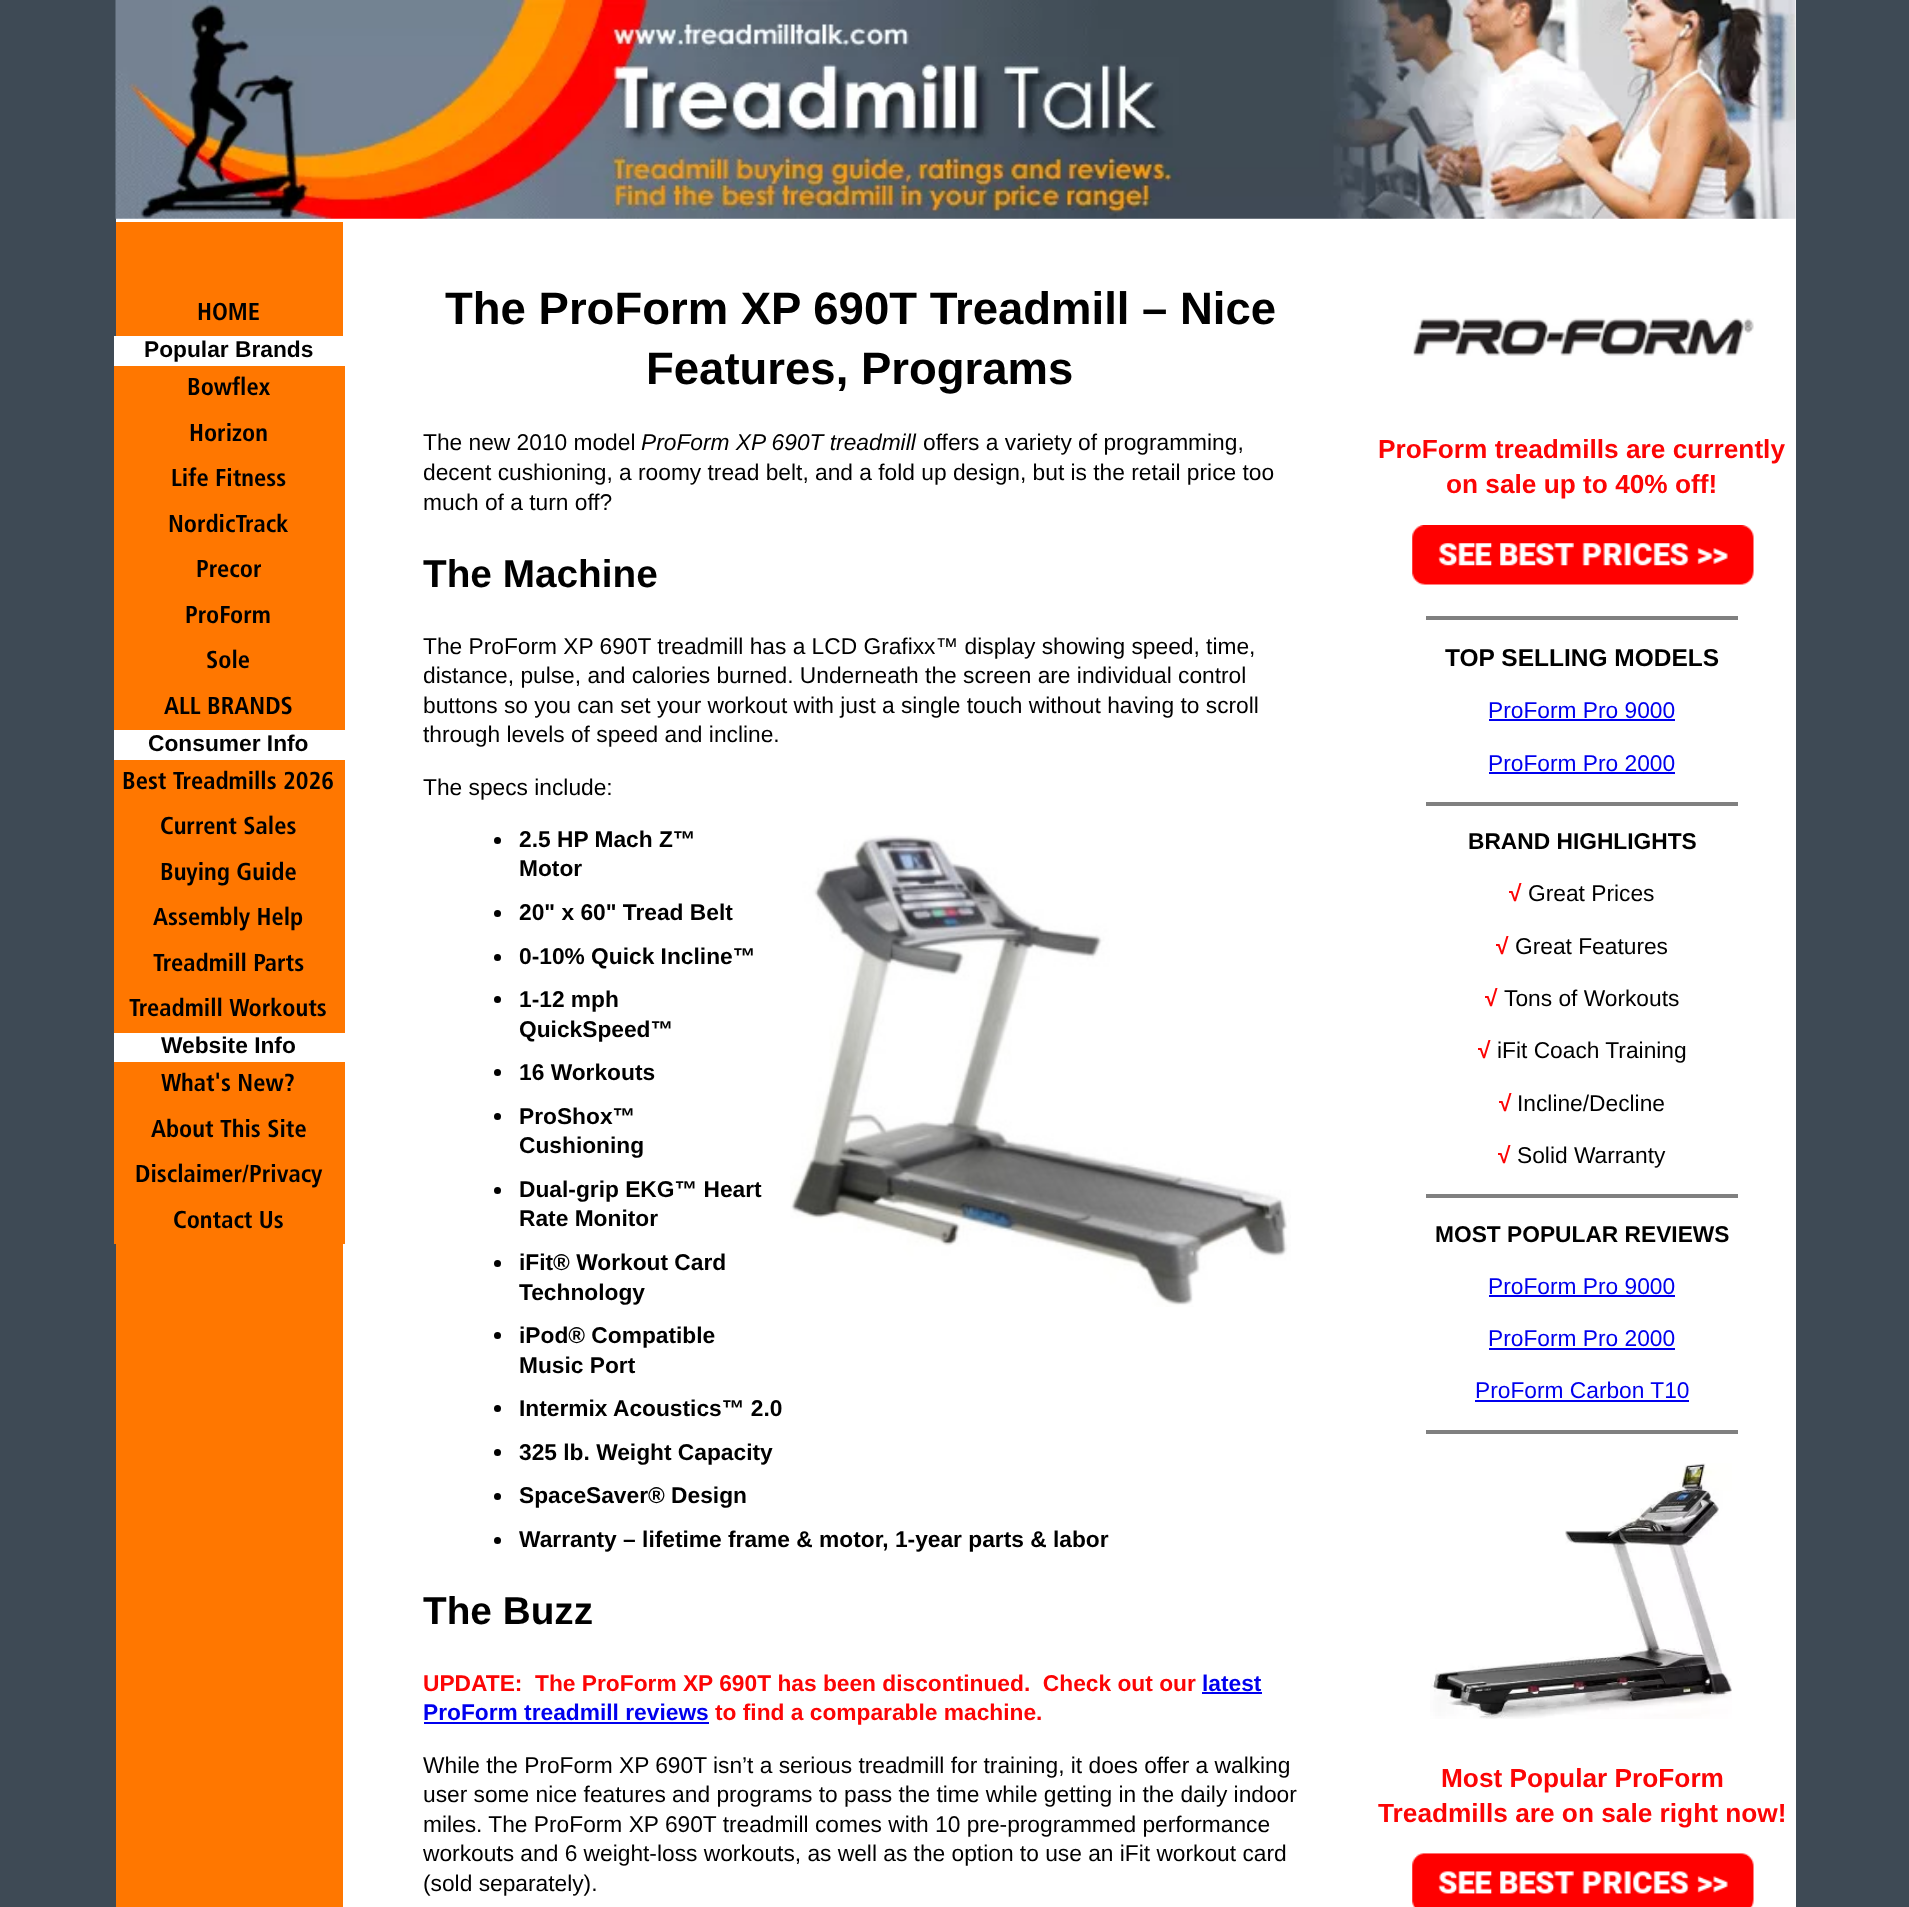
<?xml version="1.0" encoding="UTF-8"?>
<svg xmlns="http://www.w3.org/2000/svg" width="1909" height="1907">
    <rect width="100%" height="100%" fill="#3E4A55"/>
    <rect x="116" y="0" width="1680" height="1907" fill="#FFFFFF"/>
    <image x="115" y="0" width="1681" height="219" href="img_01.png"/>
    <rect x="116" y="222" width="227" height="1685" fill="#FF7700"/>
    <text x="197" y="320" font-family="Frutiger" font-size="24.5" fill="#000000">HOME</text>
    <rect x="114" y="336" width="229" height="30" fill="#FFFFFF"/>
    <text x="144" y="357" font-family="Liberation Sans" font-size="22.75" font-weight="700" fill="#000000">Popular Brands</text>
    <rect x="114" y="366" width="231" height="364" fill="#FF7700"/>
    <text x="187" y="395" font-family="Frutiger" font-size="24.5" fill="#000000">Bowflex</text>
    <text x="189" y="441" font-family="Frutiger" font-size="24.5" fill="#000000">Horizon</text>
    <text x="171" y="486" font-family="Frutiger" font-size="24.5" fill="#000000">Life Fitness</text>
    <text x="168" y="532" font-family="Frutiger" font-size="24.5" fill="#000000">NordicTrack</text>
    <text x="196" y="577" font-family="Frutiger" font-size="24.5" fill="#000000">Precor</text>
    <text x="185" y="623" font-family="Frutiger" font-size="24.5" fill="#000000">ProForm</text>
    <text x="206" y="668" font-family="Frutiger" font-size="24.5" fill="#000000">Sole</text>
    <text x="164" y="714" font-family="Frutiger" font-size="24.5" fill="#000000">ALL BRANDS</text>
    <rect x="114" y="730" width="229" height="30" fill="#FFFFFF"/>
    <text x="148" y="751" font-family="Liberation Sans" font-size="22.75" font-weight="700" fill="#000000">Consumer Info</text>
    <rect x="114" y="760" width="231" height="273" fill="#FF7700"/>
    <text x="122" y="789" font-family="Frutiger" font-size="24.5" fill="#000000">Best Treadmills 2026</text>
    <text font-family="Frutiger" font-size="24.5" fill="#000000">
        <tspan x="160" y="834">Current Sales</tspan>
        <tspan x="160" y="880">Buying Guide</tspan>
    </text>
    <text font-family="Frutiger" font-size="24.5" fill="#000000">
        <tspan x="153" y="925">Assembly Help</tspan>
        <tspan x="153" y="971">Treadmill Parts</tspan>
    </text>
    <text x="129" y="1016" font-family="Frutiger" font-size="24.5" fill="#000000">Treadmill Workouts</text>
    <rect x="114" y="1033" width="229" height="29" fill="#FFFFFF"/>
    <text x="161" y="1053" font-family="Liberation Sans" font-size="22.75" font-weight="700" fill="#000000">Website Info</text>
    <rect x="114" y="1062" width="231" height="182" fill="#FF7700"/>
    <text x="161" y="1091" font-family="Frutiger" font-size="24.5" fill="#000000">What's New?</text>
    <text x="151" y="1137" font-family="Frutiger" font-size="24.5" fill="#000000">About This Site</text>
    <text x="135" y="1182" font-family="Frutiger" font-size="24.5" fill="#000000">Disclaimer/Privacy</text>
    <text x="173" y="1228" font-family="Frutiger" font-size="24.5" fill="#000000">Contact Us</text>
    <text x="445" y="324" font-family="Liberation Sans" font-size="45.5" font-weight="700" fill="#000000">The ProForm XP 690T Treadmill – Nice</text>
    <text x="646" y="384" font-family="Liberation Sans" font-size="45.5" font-weight="700" fill="#000000">Features, Programs</text>
    <text x="423" y="450" font-family="Liberation Sans" font-size="22.75" fill="#000000">The new 2010 model</text>
    <text x="641" y="450" font-family="Liberation Sans" font-size="22.75" font-style="italic" fill="#000000">ProForm XP 690T treadmill</text>
    <text x="923" y="450" font-family="Liberation Sans" font-size="22.75" fill="#000000">offers a variety of programming,</text>
    <text font-family="Liberation Sans" font-size="22.75" fill="#000000">
        <tspan x="423" y="480">decent cushioning, a roomy tread belt, and a fold up design, but is the retail price too</tspan>
        <tspan x="423" y="510">much of a turn off?</tspan>
    </text>
    <text x="423" y="587" font-family="Liberation Sans" font-size="38.75" font-weight="700" fill="#000000">The Machine</text>
    <text font-family="Liberation Sans" font-size="22.75" fill="#000000">
        <tspan x="423" y="654">The ProForm XP 690T treadmill has a LCD Grafixx™ display showing speed, time,</tspan>
        <tspan x="423" y="683">distance, pulse, and calories burned. Underneath the screen are individual control</tspan>
        <tspan x="423" y="713">buttons so you can set your workout with just a single touch without having to scroll</tspan>
        <tspan x="423" y="742">through levels of speed and incline.</tspan>
    </text>
    <text x="423" y="795" font-family="Liberation Sans" font-size="22.75" fill="#000000">The specs include:</text>
    <circle cx="497.5" cy="840.5" r="3.5" fill="#000000"/>
    <text font-family="Liberation Sans" font-size="22.75" font-weight="700" fill="#000000">
        <tspan x="519" y="847">2.5 HP Mach Z™</tspan>
        <tspan x="519" y="876">Motor</tspan>
    </text>
    <circle cx="497.5" cy="913.5" r="3.5" fill="#000000"/>
    <text x="519" y="920" font-family="Liberation Sans" font-size="22.75" font-weight="700" fill="#000000">20" x 60" Tread Belt</text>
    <circle cx="497.5" cy="957.5" r="3.5" fill="#000000"/>
    <text x="519" y="964" font-family="Liberation Sans" font-size="22.75" font-weight="700" fill="#000000">0-10% Quick Incline™</text>
    <circle cx="497.5" cy="999.5" r="3.5" fill="#000000"/>
    <text font-family="Liberation Sans" font-size="22.75" font-weight="700" fill="#000000">
        <tspan x="519" y="1007">1-12 mph</tspan>
        <tspan x="519" y="1037">QuickSpeed™</tspan>
    </text>
    <circle cx="497.5" cy="1072.5" r="3.5" fill="#000000"/>
    <text x="519" y="1080" font-family="Liberation Sans" font-size="22.75" font-weight="700" fill="#000000">16 Workouts</text>
    <circle cx="497.5" cy="1116.5" r="3.5" fill="#000000"/>
    <text font-family="Liberation Sans" font-size="22.75" font-weight="700" fill="#000000">
        <tspan x="519" y="1124">ProShox™</tspan>
        <tspan x="519" y="1153">Cushioning</tspan>
    </text>
    <circle cx="497.5" cy="1190.5" r="3.5" fill="#000000"/>
    <text font-family="Liberation Sans" font-size="22.75" font-weight="700" fill="#000000">
        <tspan x="519" y="1197">Dual-grip EKG™ Heart</tspan>
        <tspan x="519" y="1226">Rate Monitor</tspan>
    </text>
    <circle cx="497.5" cy="1263.5" r="3.5" fill="#000000"/>
    <text font-family="Liberation Sans" font-size="22.75" font-weight="700" fill="#000000">
        <tspan x="519" y="1270">iFit® Workout Card</tspan>
        <tspan x="519" y="1300">Technology</tspan>
    </text>
    <circle cx="497.5" cy="1335.5" r="3.5" fill="#000000"/>
    <text font-family="Liberation Sans" font-size="22.75" font-weight="700" fill="#000000">
        <tspan x="519" y="1343">iPod® Compatible</tspan>
        <tspan x="519" y="1373">Music Port</tspan>
    </text>
    <circle cx="497.5" cy="1408.5" r="3.5" fill="#000000"/>
    <text x="519" y="1416" font-family="Liberation Sans" font-size="22.75" font-weight="700" fill="#000000">Intermix Acoustics™ 2.0</text>
    <circle cx="497.5" cy="1452.5" r="3.5" fill="#000000"/>
    <text x="519" y="1460" font-family="Liberation Sans" font-size="22.75" font-weight="700" fill="#000000">325 lb. Weight Capacity</text>
    <circle cx="497.5" cy="1496.5" r="3.5" fill="#000000"/>
    <text x="519" y="1503" font-family="Liberation Sans" font-size="22.75" font-weight="700" fill="#000000">SpaceSaver® Design</text>
    <circle cx="497.5" cy="1540.5" r="3.5" fill="#000000"/>
    <text x="519" y="1547" font-family="Liberation Sans" font-size="22.75" font-weight="700" fill="#000000">Warranty – lifetime frame &amp; motor, 1-year parts &amp; labor</text>
    <image x="790" y="835" width="501" height="472" href="img_02.png"/>
    <text x="423" y="1624" font-family="Liberation Sans" font-size="38.75" font-weight="700" fill="#000000">The Buzz</text>
    <text x="423" y="1691" font-family="Liberation Sans" font-size="22.75" font-weight="700" fill="#FC0505" xml:space="preserve">UPDATE:  The ProForm XP 690T has been discontinued.  Check out our</text>
    <text x="1202" y="1691" font-family="Liberation Sans" font-size="22.75" font-weight="700" fill="#0000EE">latest</text>
    <rect x="1202" y="1692" width="60" height="2" fill="#0000EE"/>
    <text x="423" y="1720" font-family="Liberation Sans" font-size="22.75" font-weight="700" fill="#0000EE">ProForm treadmill reviews</text>
    <rect x="424" y="1722" width="285" height="2" fill="#0000EE"/>
    <text x="715" y="1720" font-family="Liberation Sans" font-size="22.75" font-weight="700" fill="#FC0505">to find a comparable machine.</text>
    <text font-family="Liberation Sans" font-size="22.75" fill="#000000">
        <tspan x="423" y="1773">While the ProForm XP 690T isn’t a serious treadmill for training, it does offer a walking</tspan>
        <tspan x="423" y="1802">user some nice features and programs to pass the time while getting in the daily indoor</tspan>
        <tspan x="423" y="1832">miles. The ProForm XP 690T treadmill comes with 10 pre-programmed performance</tspan>
        <tspan x="423" y="1861">workouts and 6 weight-loss workouts, as well as the option to use an iFit workout card</tspan>
        <tspan x="423" y="1891">(sold separately).</tspan>
    </text>
    <image x="1413" y="318" width="341" height="38" href="img_03.png"/>
    <text x="1378" y="458" font-family="Liberation Sans" font-size="26.25" font-weight="700" fill="#FC0505">ProForm treadmills are currently</text>
    <text x="1446" y="493" font-family="Liberation Sans" font-size="26.25" font-weight="700" fill="#FC0505">on sale up to 40% off!</text>
    <image x="1412" y="525" width="342" height="60" href="img_04.png"/>
    <rect x="1426" y="616" width="312" height="4" fill="#808080"/>
    <text x="1445" y="666" font-family="Liberation Sans" font-size="24.5" font-weight="700" fill="#000000">TOP SELLING MODELS</text>
    <text x="1488" y="718" font-family="Liberation Sans" font-size="22.75" fill="#0000EE">ProForm Pro 9000</text>
    <rect x="1489" y="719" width="186" height="2" fill="#0000EE"/>
    <text x="1488" y="771" font-family="Liberation Sans" font-size="22.75" fill="#0000EE">ProForm Pro 2000</text>
    <rect x="1489" y="772" width="186" height="2" fill="#0000EE"/>
    <rect x="1426" y="802" width="312" height="4" fill="#808080"/>
    <text x="1468" y="849" font-family="Liberation Sans" font-size="22.75" font-weight="700" fill="#000000">BRAND HIGHLIGHTS</text>
    <text x="1509" y="901" font-family="Liberation Sans" font-size="22.75" font-weight="700" fill="#FC0505">√</text>
    <text x="1528" y="901" font-family="Liberation Sans" font-size="22.75" fill="#000000">Great Prices</text>
    <text x="1496" y="954" font-family="Liberation Sans" font-size="22.75" font-weight="700" fill="#FC0505">√</text>
    <text x="1515" y="954" font-family="Liberation Sans" font-size="22.75" fill="#000000">Great Features</text>
    <text x="1485" y="1006" font-family="Liberation Sans" font-size="22.75" font-weight="700" fill="#FC0505">√</text>
    <text x="1504" y="1006" font-family="Liberation Sans" font-size="22.75" fill="#000000">Tons of Workouts</text>
    <text x="1478" y="1058" font-family="Liberation Sans" font-size="22.75" font-weight="700" fill="#FC0505">√</text>
    <text x="1497" y="1058" font-family="Liberation Sans" font-size="22.75" fill="#000000">iFit Coach Training</text>
    <text x="1499" y="1111" font-family="Liberation Sans" font-size="22.75" font-weight="700" fill="#FC0505">√</text>
    <text x="1517" y="1111" font-family="Liberation Sans" font-size="22.75" fill="#000000">Incline/Decline</text>
    <text x="1498" y="1163" font-family="Liberation Sans" font-size="22.75" font-weight="700" fill="#FC0505">√</text>
    <text x="1517" y="1163" font-family="Liberation Sans" font-size="22.75" fill="#000000">Solid Warranty</text>
    <rect x="1426" y="1194" width="312" height="4" fill="#808080"/>
    <text x="1435" y="1242" font-family="Liberation Sans" font-size="22.75" font-weight="700" fill="#000000">MOST POPULAR REVIEWS</text>
    <text x="1488" y="1294" font-family="Liberation Sans" font-size="22.75" fill="#0000EE">ProForm Pro 9000</text>
    <rect x="1489" y="1295" width="186" height="2" fill="#0000EE"/>
    <text x="1488" y="1346" font-family="Liberation Sans" font-size="22.75" fill="#0000EE">ProForm Pro 2000</text>
    <rect x="1489" y="1348" width="186" height="2" fill="#0000EE"/>
    <text x="1475" y="1398" font-family="Liberation Sans" font-size="22.75" fill="#0000EE">ProForm Carbon T10</text>
    <rect x="1475" y="1400" width="214" height="2" fill="#0000EE"/>
    <rect x="1426" y="1430" width="312" height="4" fill="#808080"/>
    <image x="1430" y="1463" width="302" height="256" href="img_05.png"/>
    <text x="1441" y="1787" font-family="Liberation Sans" font-size="26.25" font-weight="700" fill="#FC0505">Most Popular ProForm</text>
    <text x="1378" y="1822" font-family="Liberation Sans" font-size="26.25" font-weight="700" fill="#FC0505">Treadmills are on sale right now!</text>
    <image x="1412" y="1853" width="342" height="54" href="img_06.png"/>
</svg>
